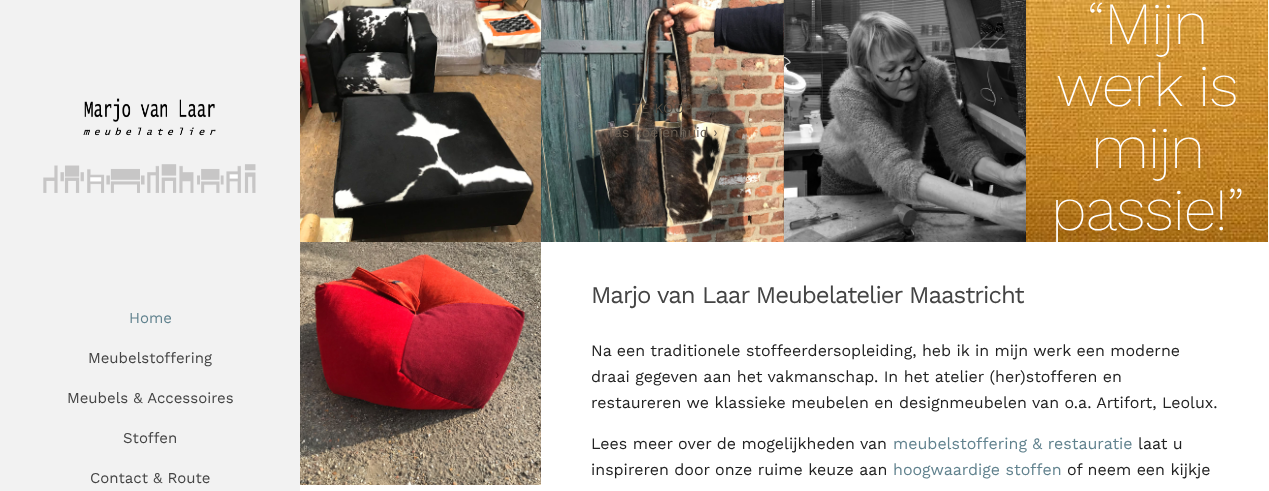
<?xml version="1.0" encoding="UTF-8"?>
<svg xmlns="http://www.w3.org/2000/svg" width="1269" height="491">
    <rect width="100%" height="100%" fill="#FFFFFF"/>
    <rect x="0" y="0" width="300" height="491" fill="#F2F2F2"/>
    <image x="43" y="98" width="213" height="95" href="img_01.png"/>
    <text x="129" y="323" font-family="Work Sans" font-size="15" fill="#61828E">Home</text>
    <text x="88" y="363" font-family="Work Sans" font-size="15" fill="#444444">Meubelstoffering</text>
    <text x="67" y="403" font-family="Work Sans" font-size="15" fill="#444444">Meubels &amp; Accessoires</text>
    <text x="123" y="443" font-family="Work Sans" font-size="15" fill="#444444">Stoffen</text>
    <text x="90" y="483" font-family="Work Sans" font-size="15" fill="#444444">Contact &amp; Route</text>
    <image x="300" y="0" width="241" height="242" href="img_02.png"/>
    <image x="541" y="0" width="243" height="242" href="img_03.png"/>
    <text x="632" y="113" font-family="Work Sans" font-size="14" fill="#534B41">TE KOOP</text>
    <text x="607" y="137" font-family="Work Sans" font-size="14" fill="#695E53">Tas koeienhuid ›</text>
    <image x="784" y="0" width="242" height="242" href="img_04.png"/>
    <image x="1026" y="0" width="242" height="242" href="img_05.png"/>
    <text x="1087" y="44" font-family="Work Sans" font-size="60" font-weight="200" letter-spacing="-1" fill="#FFFFFF">“Mijn</text>
    <text x="1056" y="106" font-family="Work Sans" font-size="60" font-weight="200" letter-spacing="-1" fill="#FFFFFF">werk is</text>
    <text x="1091" y="168" font-family="Work Sans" font-size="60" font-weight="200" letter-spacing="-1" fill="#FFFFFF">mijn</text>
    <text x="1051" y="230" font-family="Work Sans" font-size="60" font-weight="200" letter-spacing="-1" fill="#FFFFFF">passie!”</text>
    <image x="300" y="242" width="241" height="243" href="img_06.png"/>
    <text x="495" y="379" font-family="Work Sans" font-size="14" fill="#740C1A">›</text>
    <text x="591" y="303" font-family="Work Sans" font-size="24" letter-spacing="-1" fill="#444444">Marjo van Laar Meubelatelier Maastricht</text>
    <text font-family="Work Sans" font-size="16" fill="#222222">
        <tspan x="591" y="356">Na een traditionele stoffeerdersopleiding, heb ik in mijn werk een moderne</tspan>
        <tspan x="591" y="382">draai gegeven aan het vakmanschap. In het atelier (her)stofferen en</tspan>
        <tspan x="591" y="408">restaureren we klassieke meubelen en designmeubelen van o.a. Artifort, Leolux.</tspan>
    </text>
    <text x="591" y="449" font-family="Work Sans" font-size="16" fill="#222222">Lees meer over de mogelijkheden van</text>
    <text x="893" y="449" font-family="Work Sans" font-size="16" fill="#61828E">meubelstoffering &amp; restauratie</text>
    <text x="1138" y="449" font-family="Work Sans" font-size="16" fill="#222222">laat u</text>
    <text x="591" y="475" font-family="Work Sans" font-size="16" fill="#222222">inspireren door onze ruime keuze aan</text>
    <text x="893" y="475" font-family="Work Sans" font-size="16" fill="#61828E">hoogwaardige stoffen</text>
    <text x="1067" y="475" font-family="Work Sans" font-size="16" fill="#222222">of neem een kijkje</text>
</svg>
